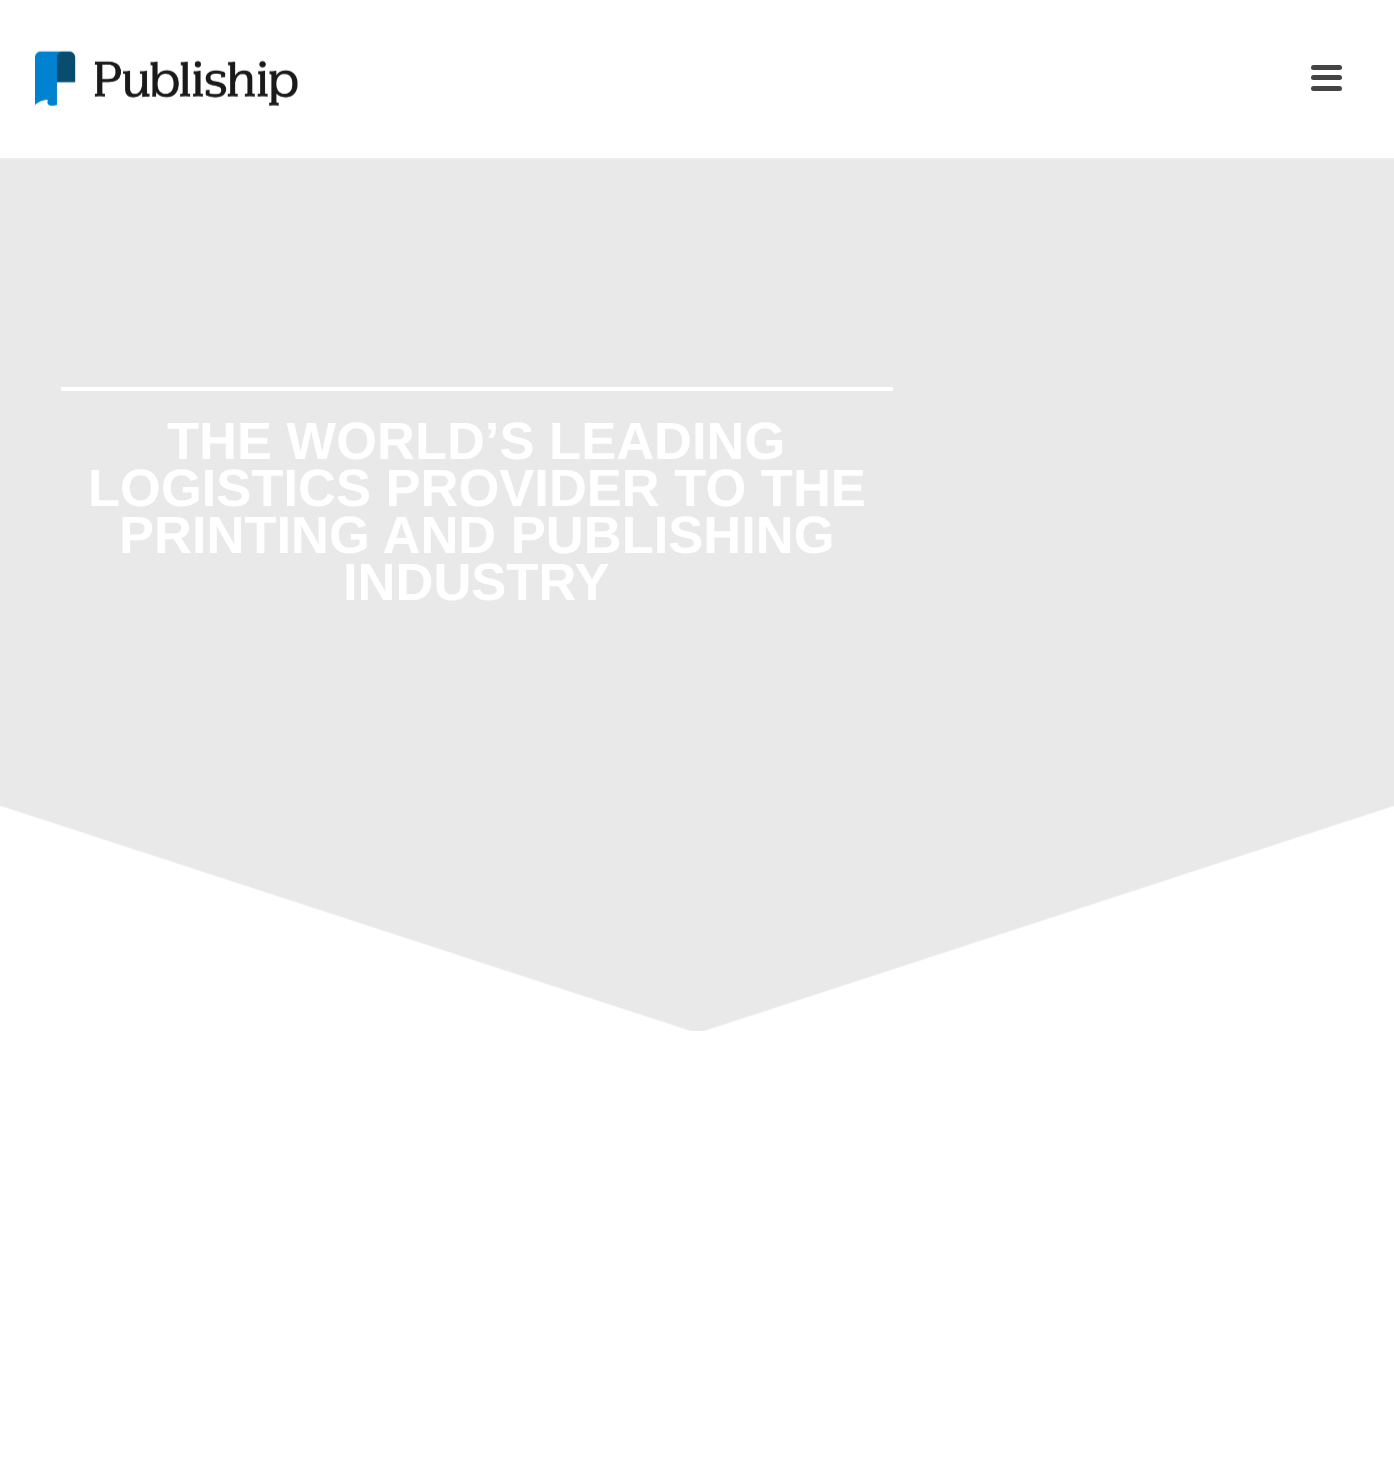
<?xml version="1.0" encoding="UTF-8"?>
<svg xmlns="http://www.w3.org/2000/svg" width="1394" height="1469">
    <rect width="100%" height="100%" fill="#FFFFFF"/>
    <rect x="0" y="158" width="1394" height="2" fill="#EDEDED"/>
    <image x="35" y="50" width="263" height="56" href="img_01.png"/>
    <rect x="1311" y="65" width="31" height="5" rx="2.5" fill="#444444"/>
    <rect x="1311" y="75" width="31" height="5" rx="2.5" fill="#444444"/>
    <rect x="1311" y="86" width="31" height="5" rx="2.5" fill="#444444"/>
    <rect x="0" y="160" width="1394" height="871" fill="#E9E9E9"/>
    <rect x="61" y="387" width="832" height="4" fill="#FFFFFF"/>
    <text x="167" y="459" font-family="Liberation Sans" font-size="52.5" font-weight="700" fill="#FFFFFF">THE WORLD’S LEADING</text>
    <text x="88" y="506" font-family="Liberation Sans" font-size="52.5" font-weight="700" fill="#FFFFFF">LOGISTICS PROVIDER TO THE</text>
    <text x="119" y="553" font-family="Liberation Sans" font-size="52.5" font-weight="700" fill="#FFFFFF">PRINTING AND PUBLISHING</text>
    <text x="343" y="600" font-family="Liberation Sans" font-size="52.5" font-weight="700" fill="#FFFFFF">INDUSTRY</text>
    <image x="0" y="806" width="1394" height="225" href="img_02.png"/>
</svg>
